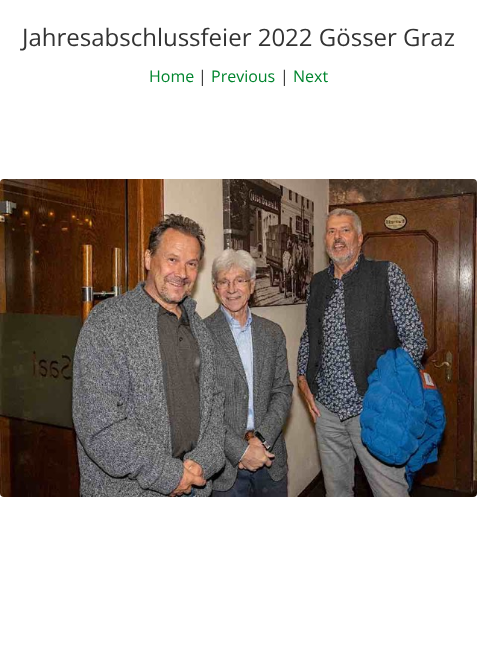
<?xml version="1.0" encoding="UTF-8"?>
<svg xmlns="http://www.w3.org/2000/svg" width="477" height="650">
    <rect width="100%" height="100%" fill="#FFFFFF"/>
    <text x="22" y="46" font-family="Open Sans" font-size="24" fill="#333333">Jahresabschlussfeier 2022 Gösser Graz</text>
    <text x="149" y="82" font-family="Open Sans" font-size="16" fill="#00852E">Home</text>
    <text x="198" y="82" font-family="Open Sans" font-size="16" fill="#333333">|</text>
    <text x="211" y="82" font-family="Open Sans" font-size="16" fill="#00852E">Previous</text>
    <text x="280" y="82" font-family="Open Sans" font-size="16" fill="#333333">|</text>
    <text x="293" y="82" font-family="Open Sans" font-size="16" fill="#00852E">Next</text>
    <image x="0" y="179" width="477" height="318" href="img_01.png"/>
</svg>
